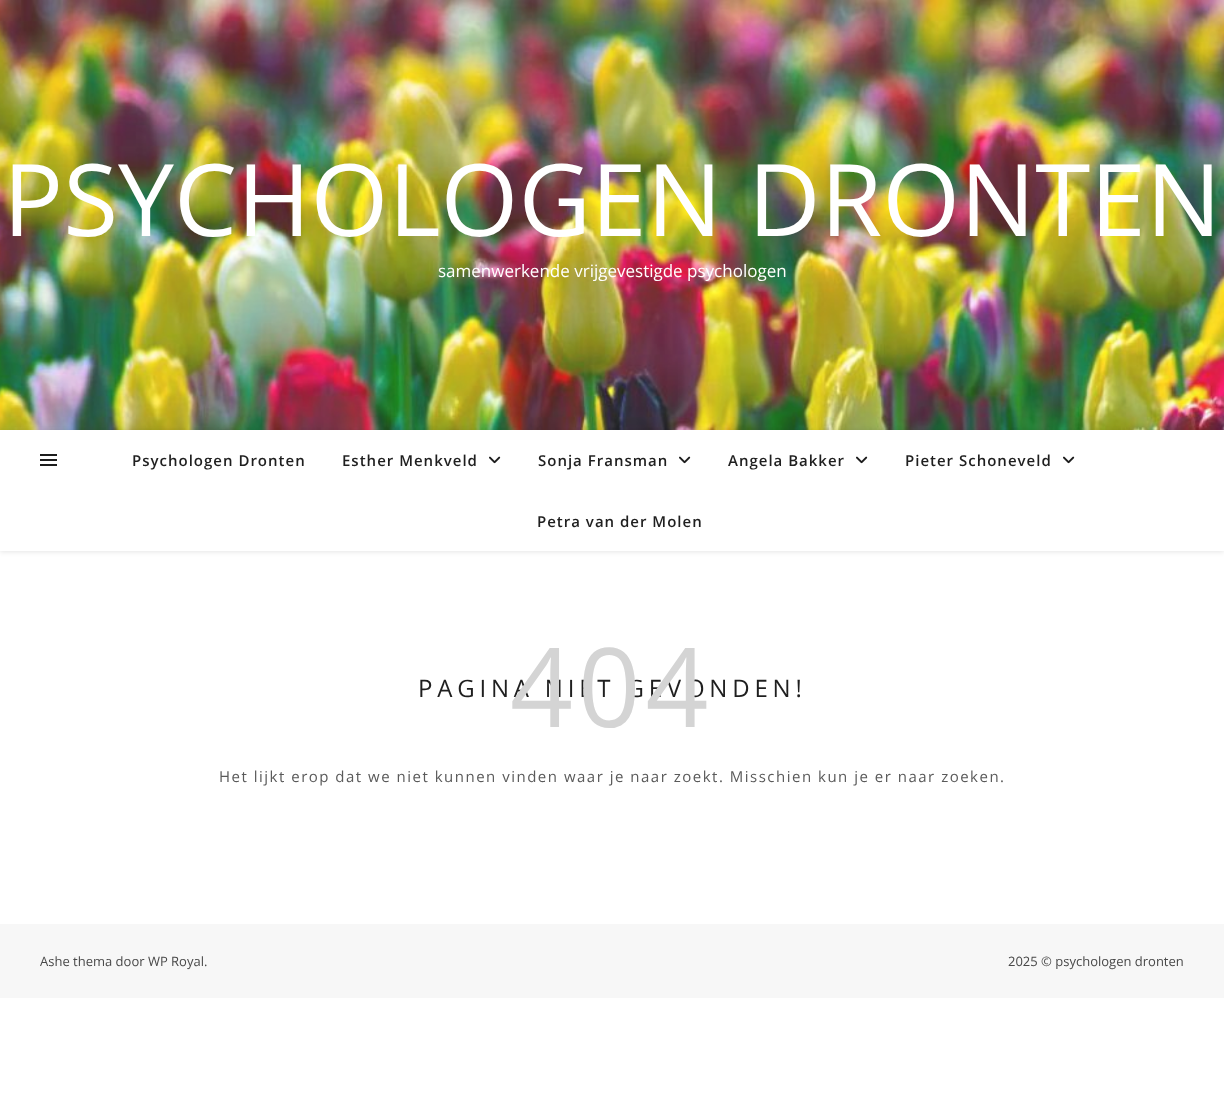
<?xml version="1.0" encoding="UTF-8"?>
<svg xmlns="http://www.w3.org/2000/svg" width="1224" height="1111">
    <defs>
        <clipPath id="clip1"><path d="M 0 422 H 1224 V 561 H 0 Z M 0 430 H 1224 V 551 H 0 Z" clip-rule="evenodd"/></clipPath>
        <filter id="blur1" x="-50%" y="-200%" width="200%" height="500%"><feGaussianBlur stdDeviation="2.5"/></filter>
    </defs>
    <rect width="100%" height="100%" fill="#FFFFFF"/>
    <image x="0" y="0" width="1224" height="430" href="img_01.png"/>
    <text x="3" y="236" font-family="Open Sans" font-size="100" fill="#FFFFFF">PSYCHOLOGEN DRONTEN</text>
    <text x="438" y="277" font-family="Open Sans" font-size="17" fill="#FFFFFF">samenwerkende vrijgevestigde psychologen</text>
    <g clip-path="url(#clip1)">
        <rect x="0" y="431" width="1224" height="121" fill="#1C1C1C" fill-opacity="0.1" filter="url(#blur1)"/>
    </g>
    <rect x="40" y="454" width="17" height="2" fill="#1C1C1C"/>
    <rect x="40" y="459" width="17" height="2" fill="#1C1C1C"/>
    <rect x="40" y="464" width="17" height="2" fill="#1C1C1C"/>
    <text x="132" y="466" font-family="Open Sans" font-size="15" font-weight="600" letter-spacing="1" fill="#1F1F1F">Psychologen Dronten</text>
    <text x="342" y="466" font-family="Open Sans" font-size="15" font-weight="600" letter-spacing="1" fill="#1F1F1F">Esther Menkveld</text>
    <image x="489" y="456" width="12" height="8" href="img_02.png"/>
    <text x="538" y="466" font-family="Open Sans" font-size="15" font-weight="600" letter-spacing="1" fill="#1F1F1F">Sonja Fransman</text>
    <image x="679" y="456" width="12" height="8" href="img_02.png"/>
    <text x="728" y="466" font-family="Open Sans" font-size="15" font-weight="600" letter-spacing="1" fill="#1F1F1F">Angela Bakker</text>
    <image x="856" y="456" width="12" height="8" href="img_02.png"/>
    <text x="905" y="466" font-family="Open Sans" font-size="15" font-weight="600" letter-spacing="1" fill="#1F1F1F">Pieter Schoneveld</text>
    <image x="1063" y="456" width="12" height="8" href="img_02.png"/>
    <text x="537" y="527" font-family="Open Sans" font-size="15" font-weight="600" letter-spacing="1" fill="#1F1F1F">Petra van der Molen</text>
    <text x="418" y="697" font-family="Open Sans" font-size="24" letter-spacing="4.8" fill="#1F1F1F">PAGINA NIET GEVONDEN!</text>
    <text x="510" y="727" font-family="Open Sans" font-size="110" letter-spacing="4.8" fill="#D4D4D4">404</text>
    <text x="219" y="782" font-family="Open Sans" font-size="15" letter-spacing="1.5" fill="#5A5A5A">Het lijkt erop dat we niet kunnen vinden waar je naar zoekt. Misschien kun je er naar zoeken.</text>
    <rect x="0" y="924" width="1224" height="74" fill="#F7F7F7"/>
    <text x="40" y="966" font-family="Open Sans" font-size="13" fill="#494949">Ashe thema door WP Royal.</text>
    <text x="1008" y="966" font-family="Open Sans" font-size="13" fill="#494949">2025 © psychologen dronten</text>
</svg>
